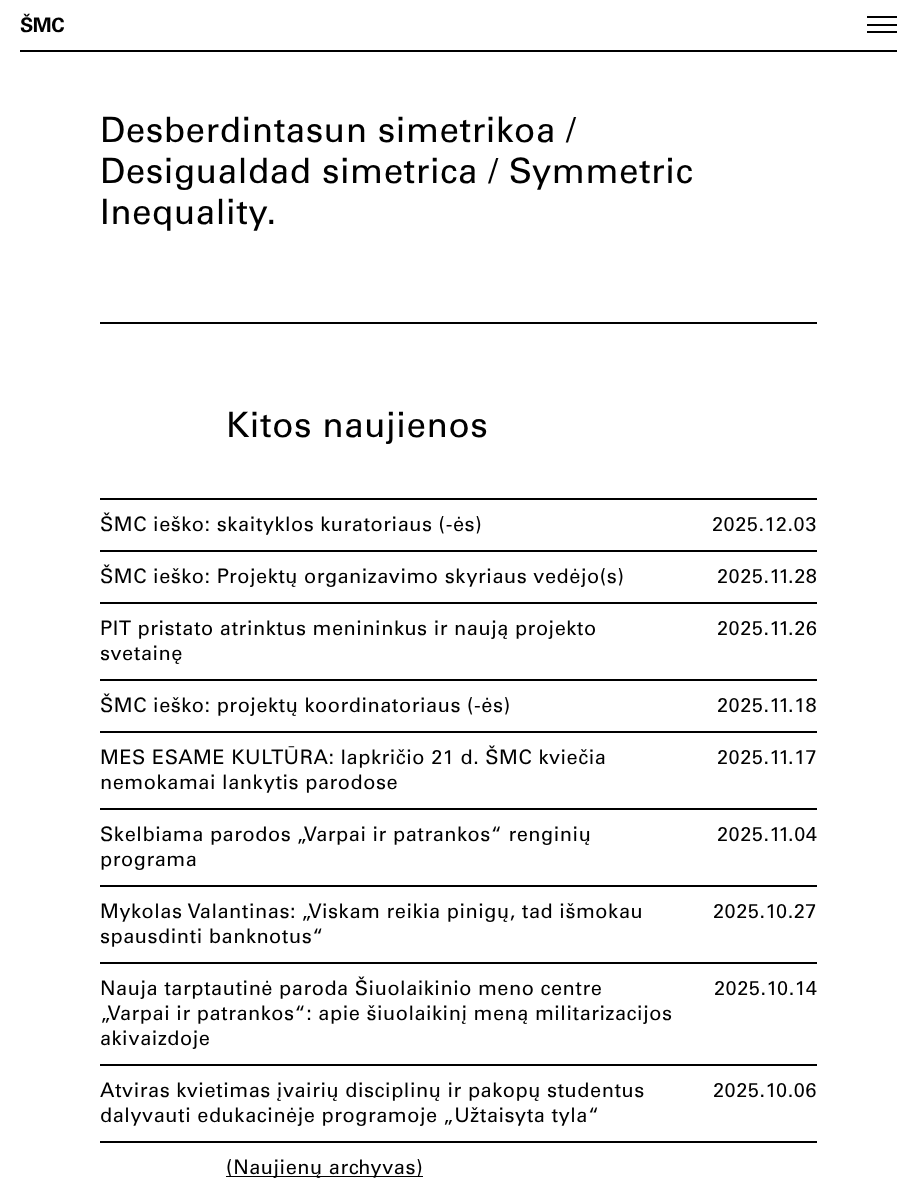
<?xml version="1.0" encoding="UTF-8"?>
<svg xmlns="http://www.w3.org/2000/svg" width="917" height="1179">
    <rect width="100%" height="100%" fill="#FFFFFF"/>
    <rect x="20" y="50" width="877" height="2" fill="#000000"/>
    <text x="20" y="32" font-family="Univers" font-size="20" font-weight="700" letter-spacing="-0.5" fill="#000000">ŠMC</text>
    <rect x="867" y="16" width="30" height="2" fill="#000000"/>
    <rect x="867" y="24" width="30" height="2" fill="#000000"/>
    <rect x="867" y="31" width="30" height="2" fill="#000000"/>
    <text font-family="Univers" font-size="35" letter-spacing="0.5" fill="#000000">
        <tspan x="100" y="142">Desberdintasun simetrikoa /</tspan>
        <tspan x="100" y="183">Desigualdad simetrica / Symmetric</tspan>
        <tspan x="100" y="224">Inequality.</tspan>
    </text>
    <rect x="100" y="322" width="717" height="2" fill="#000000"/>
    <text x="226" y="437" font-family="Univers" font-size="35" letter-spacing="0.5" fill="#000000">Kitos naujienos</text>
    <rect x="100" y="498" width="717" height="2" fill="#000000"/>
    <rect x="100" y="550" width="717" height="2" fill="#000000"/>
    <text x="100" y="531" font-family="Univers" font-size="20" letter-spacing="0.5" fill="#000000">ŠMC ieško: skaityklos kuratoriaus (-ės)</text>
    <text x="712" y="531" font-family="Univers" font-size="20" letter-spacing="0.5" fill="#000000">2025.12.03</text>
    <rect x="100" y="602" width="717" height="2" fill="#000000"/>
    <text x="100" y="583" font-family="Univers" font-size="20" letter-spacing="0.5" fill="#000000">ŠMC ieško: Projektų organizavimo skyriaus vedėjo(s)</text>
    <text x="717" y="583" font-family="Univers" font-size="20" letter-spacing="0.5" fill="#000000">2025.11.28</text>
    <rect x="100" y="679" width="717" height="2" fill="#000000"/>
    <text font-family="Univers" font-size="20" letter-spacing="0.5" fill="#000000">
        <tspan x="100" y="635">PIT pristato atrinktus menininkus ir naują projekto</tspan>
        <tspan x="100" y="660">svetainę</tspan>
    </text>
    <text x="717" y="635" font-family="Univers" font-size="20" letter-spacing="0.5" fill="#000000">2025.11.26</text>
    <rect x="100" y="731" width="717" height="2" fill="#000000"/>
    <text x="100" y="712" font-family="Univers" font-size="20" letter-spacing="0.5" fill="#000000">ŠMC ieško: projektų koordinatoriaus (-ės)</text>
    <text x="717" y="712" font-family="Univers" font-size="20" letter-spacing="0.5" fill="#000000">2025.11.18</text>
    <rect x="100" y="808" width="717" height="2" fill="#000000"/>
    <text font-family="Univers" font-size="20" letter-spacing="0.5" fill="#000000">
        <tspan x="100" y="764">MES ESAME KULTŪRA: lapkričio 21 d. ŠMC kviečia</tspan>
        <tspan x="100" y="789">nemokamai lankytis parodose</tspan>
    </text>
    <text x="717" y="764" font-family="Univers" font-size="20" letter-spacing="0.5" fill="#000000">2025.11.17</text>
    <rect x="100" y="885" width="717" height="2" fill="#000000"/>
    <text font-family="Univers" font-size="20" letter-spacing="0.5" fill="#000000">
        <tspan x="100" y="841">Skelbiama parodos „Varpai ir patrankos“ renginių</tspan>
        <tspan x="100" y="866">programa</tspan>
    </text>
    <text x="717" y="841" font-family="Univers" font-size="20" letter-spacing="0.5" fill="#000000">2025.11.04</text>
    <rect x="100" y="962" width="717" height="2" fill="#000000"/>
    <text font-family="Univers" font-size="20" letter-spacing="0.5" fill="#000000">
        <tspan x="100" y="918">Mykolas Valantinas: „Viskam reikia pinigų, tad išmokau</tspan>
        <tspan x="100" y="943">spausdinti banknotus“</tspan>
    </text>
    <text x="713" y="918" font-family="Univers" font-size="20" letter-spacing="0.5" fill="#000000">2025.10.27</text>
    <rect x="100" y="1064" width="717" height="2" fill="#000000"/>
    <text font-family="Univers" font-size="20" letter-spacing="0.5" fill="#000000">
        <tspan x="100" y="995">Nauja tarptautinė paroda Šiuolaikinio meno centre</tspan>
        <tspan x="100" y="1020">„Varpai ir patrankos“: apie šiuolaikinį meną militarizacijos</tspan>
        <tspan x="100" y="1045">akivaizdoje</tspan>
    </text>
    <text x="714" y="995" font-family="Univers" font-size="20" letter-spacing="0.5" fill="#000000">2025.10.14</text>
    <rect x="100" y="1141" width="717" height="2" fill="#000000"/>
    <text font-family="Univers" font-size="20" letter-spacing="0.5" fill="#000000">
        <tspan x="100" y="1097">Atviras kvietimas įvairių disciplinų ir pakopų studentus</tspan>
        <tspan x="100" y="1122">dalyvauti edukacinėje programoje „Užtaisyta tyla“</tspan>
    </text>
    <text x="713" y="1097" font-family="Univers" font-size="20" letter-spacing="0.5" fill="#000000">2025.10.06</text>
    <rect x="226" y="1176" width="197" height="1" fill="#000000"/>
    <text x="226" y="1174" font-family="Univers" font-size="20" letter-spacing="0.5" fill="#000000">(Naujienų archyvas)</text>
</svg>
